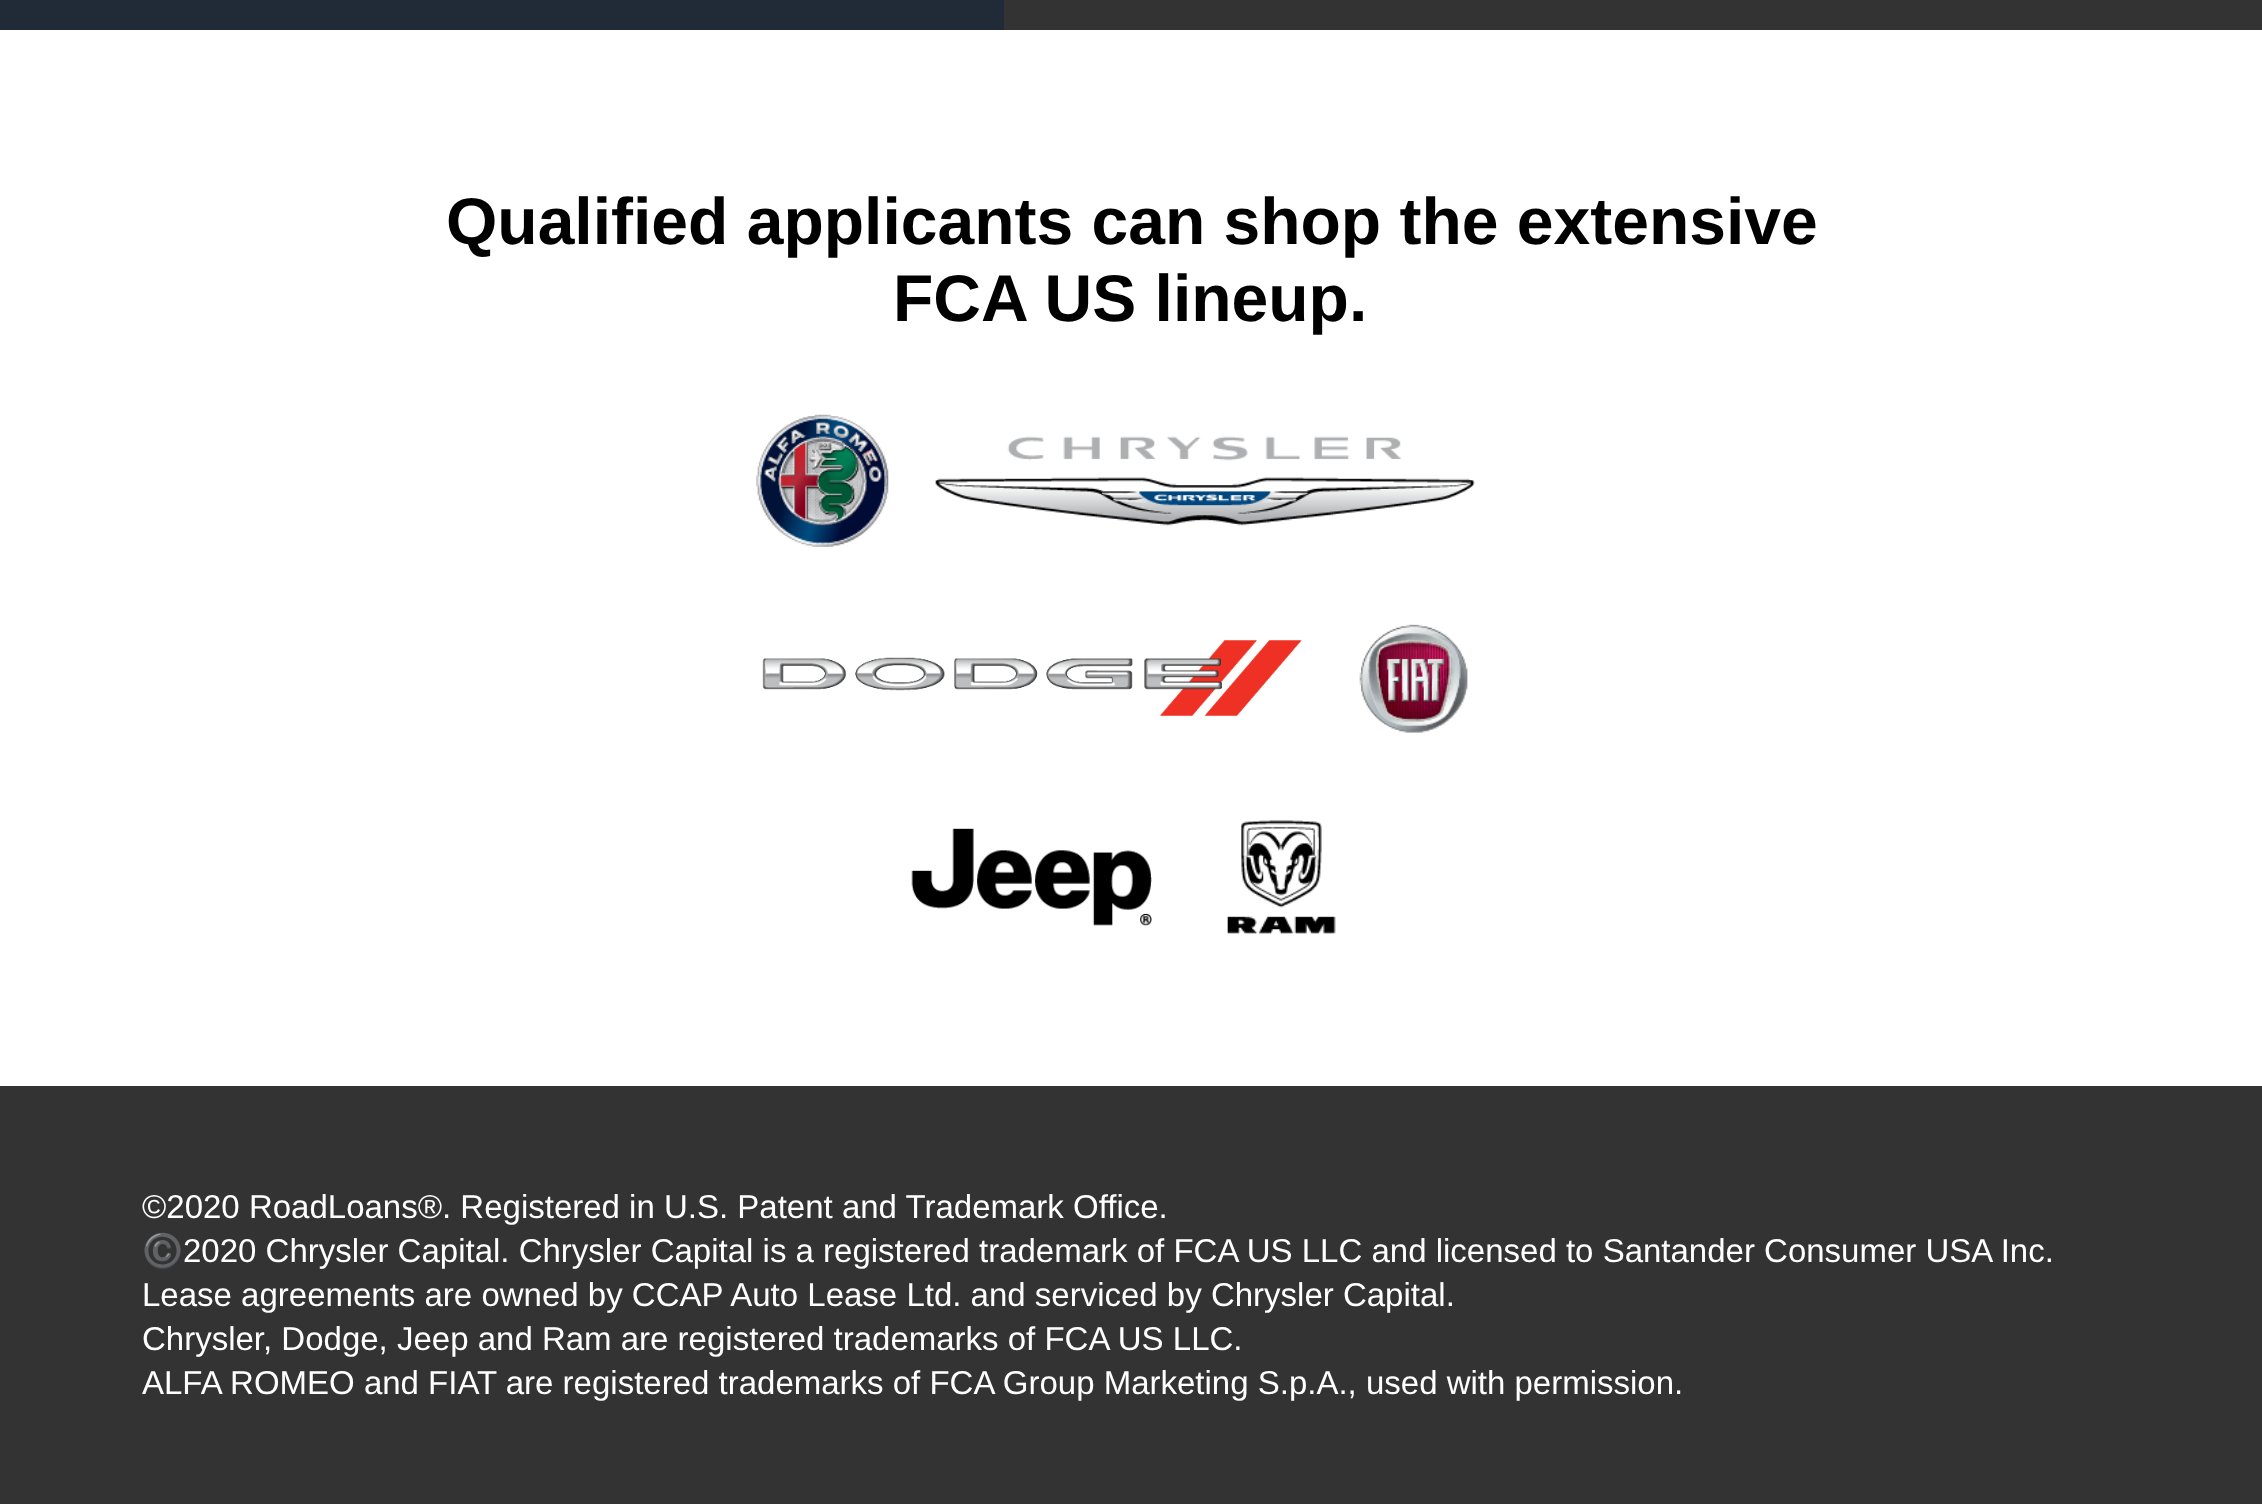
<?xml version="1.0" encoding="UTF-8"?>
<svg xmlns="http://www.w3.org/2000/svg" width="2262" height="1504">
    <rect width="100%" height="100%" fill="#333333"/>
    <rect x="0" y="0" width="1004" height="30" fill="#202B37"/>
    <rect x="0" y="30" width="2262" height="1056" fill="#FFFFFF"/>
    <text x="446" y="244" font-family="Liberation Sans" font-size="66" font-weight="700" fill="#000000">Qualified applicants can shop the extensive</text>
    <text x="893" y="321" font-family="Liberation Sans" font-size="66" font-weight="700" fill="#000000">FCA US lineup.</text>
    <image x="756" y="414" width="133" height="133" href="img_01.png"/>
    <image x="935" y="436" width="540" height="90" href="img_02.png"/>
    <image x="762" y="640" width="540" height="76" href="img_03.png"/>
    <image x="1359" y="624" width="109" height="109" href="img_04.png"/>
    <image x="911" y="828" width="241" height="98" href="img_05.png"/>
    <image x="1227" y="820" width="109" height="114" href="img_06.png"/>
    <text x="142" y="1218" font-family="Liberation Sans" font-size="33" fill="#FFFFFF">©2020 RoadLoans®. Registered in U.S. Patent and Trademark Office.</text>
    <text x="142" y="1262" font-family="Noto Color Emoji" font-size="33" fill="#FFFFFF">©️</text>
    <text x="183" y="1262" font-family="Liberation Sans" font-size="33" fill="#FFFFFF">2020 Chrysler Capital. Chrysler Capital is a registered trademark of FCA US LLC and licensed to Santander Consumer USA Inc.</text>
    <text font-family="Liberation Sans" font-size="33" fill="#FFFFFF">
        <tspan x="142" y="1306">Lease agreements are owned by CCAP Auto Lease Ltd. and serviced by Chrysler Capital.</tspan>
        <tspan x="142" y="1350">Chrysler, Dodge, Jeep and Ram are registered trademarks of FCA US LLC.</tspan>
        <tspan x="142" y="1394">ALFA ROMEO and FIAT are registered trademarks of FCA Group Marketing S.p.A., used with permission.</tspan>
    </text>
</svg>
